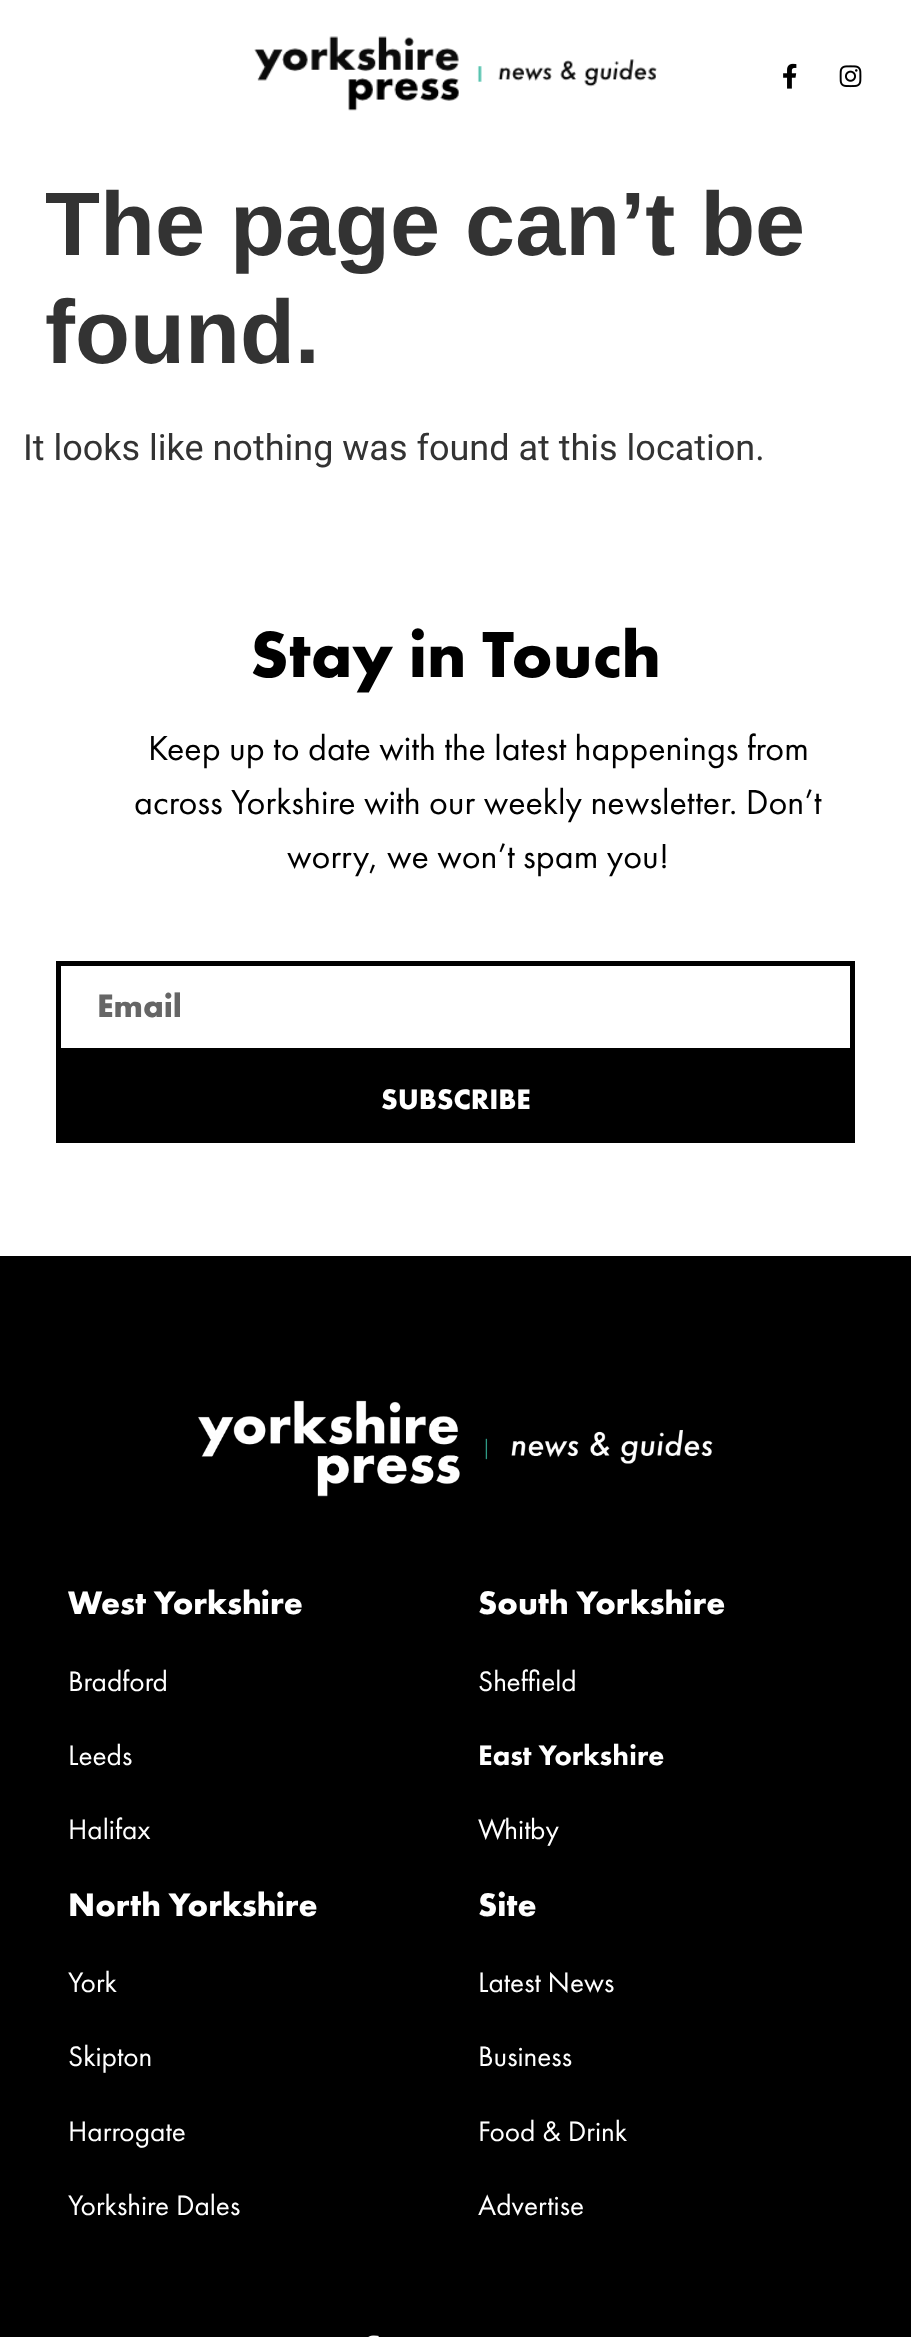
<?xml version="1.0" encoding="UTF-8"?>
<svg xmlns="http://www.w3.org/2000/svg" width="911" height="2337">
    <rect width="100%" height="100%" fill="#FFFFFF"/>
    <image x="254" y="36" width="403" height="75" href="img_01.png"/>
    <image x="783" y="63" width="14" height="26" href="img_02.png"/>
    <image x="839" y="65" width="23" height="23" href="img_03.png"/>
    <text font-family="Liberation Sans" font-size="90" font-weight="700" fill="#333333">
        <tspan x="45" y="255">The page can’t be</tspan>
        <tspan x="45" y="363">found.</tspan>
    </text>
    <text x="23" y="460" font-family="Roboto" font-size="36" fill="#333333">It looks like nothing was found at this location.</text>
    <text x="250" y="677" font-family="Futura PT" font-size="67.5" font-weight="700" fill="#000000">Stay in Touch</text>
    <text x="148" y="760" font-family="Futura PT" font-size="36" fill="#000000">Keep up to date with the latest happenings from</text>
    <text x="134" y="814" font-family="Futura PT" font-size="36" fill="#000000">across Yorkshire with our weekly newsletter. Don’t</text>
    <text x="287" y="868" font-family="Futura PT" font-size="36" fill="#000000">worry, we won’t spam you!</text>
    <rect x="58.5" y="963.5" width="794" height="87" fill="none" stroke="#000000" stroke-width="5"/>
    <text x="97" y="1017" font-family="Futura PT" font-size="33.75" font-weight="700" fill="#666666">Email</text>
    <rect x="56" y="1053" width="799" height="90" fill="#000000"/>
    <text x="381" y="1109" font-family="Futura PT" font-size="29.25" font-weight="700" fill="#FFFFFF">SUBSCRIBE</text>
    <rect x="0" y="1256" width="911" height="1081" fill="#000000"/>
    <image x="198" y="1400" width="515" height="97" href="img_04.png"/>
    <text x="68" y="1614" font-family="Futura PT" font-size="33.75" font-weight="700" fill="#FFFFFF">West Yorkshire</text>
    <text x="68" y="1691" font-family="Futura PT" font-size="29.25" fill="#FFFFFF">Bradford</text>
    <text x="68" y="1765" font-family="Futura PT" font-size="29.25" fill="#FFFFFF">Leeds</text>
    <text x="68" y="1839" font-family="Futura PT" font-size="29.25" fill="#FFFFFF">Halifax</text>
    <text x="478" y="1614" font-family="Futura PT" font-size="33.75" font-weight="700" fill="#FFFFFF">South Yorkshire</text>
    <text x="478" y="1691" font-family="Futura PT" font-size="29.25" fill="#FFFFFF">Sheffield</text>
    <text x="478" y="1765" font-family="Futura PT" font-size="29.25" font-weight="900" fill="#FFFFFF">East Yorkshire</text>
    <text x="478" y="1839" font-family="Futura PT" font-size="29.25" fill="#FFFFFF">Whitby</text>
    <text x="68" y="1916" font-family="Futura PT" font-size="33.75" font-weight="700" fill="#FFFFFF">North Yorkshire</text>
    <text x="68" y="1992" font-family="Futura PT" font-size="29.25" fill="#FFFFFF">York</text>
    <text x="68" y="2066" font-family="Futura PT" font-size="29.25" fill="#FFFFFF">Skipton</text>
    <text x="68" y="2141" font-family="Futura PT" font-size="29.25" fill="#FFFFFF">Harrogate</text>
    <text x="68" y="2215" font-family="Futura PT" font-size="29.25" fill="#FFFFFF">Yorkshire Dales</text>
    <text x="478" y="1916" font-family="Futura PT" font-size="33.75" font-weight="700" fill="#FFFFFF">Site</text>
    <text x="478" y="1992" font-family="Futura PT" font-size="29.25" fill="#FFFFFF">Latest News</text>
    <text x="478" y="2066" font-family="Futura PT" font-size="29.25" fill="#FFFFFF">Business</text>
    <text x="478" y="2141" font-family="Futura PT" font-size="29.25" fill="#FFFFFF">Food &amp; Drink</text>
    <text x="478" y="2215" font-family="Futura PT" font-size="29.25" fill="#FFFFFF">Advertise</text>
    <image x="368" y="2335" width="11" height="2" href="img_05.png"/>
</svg>
